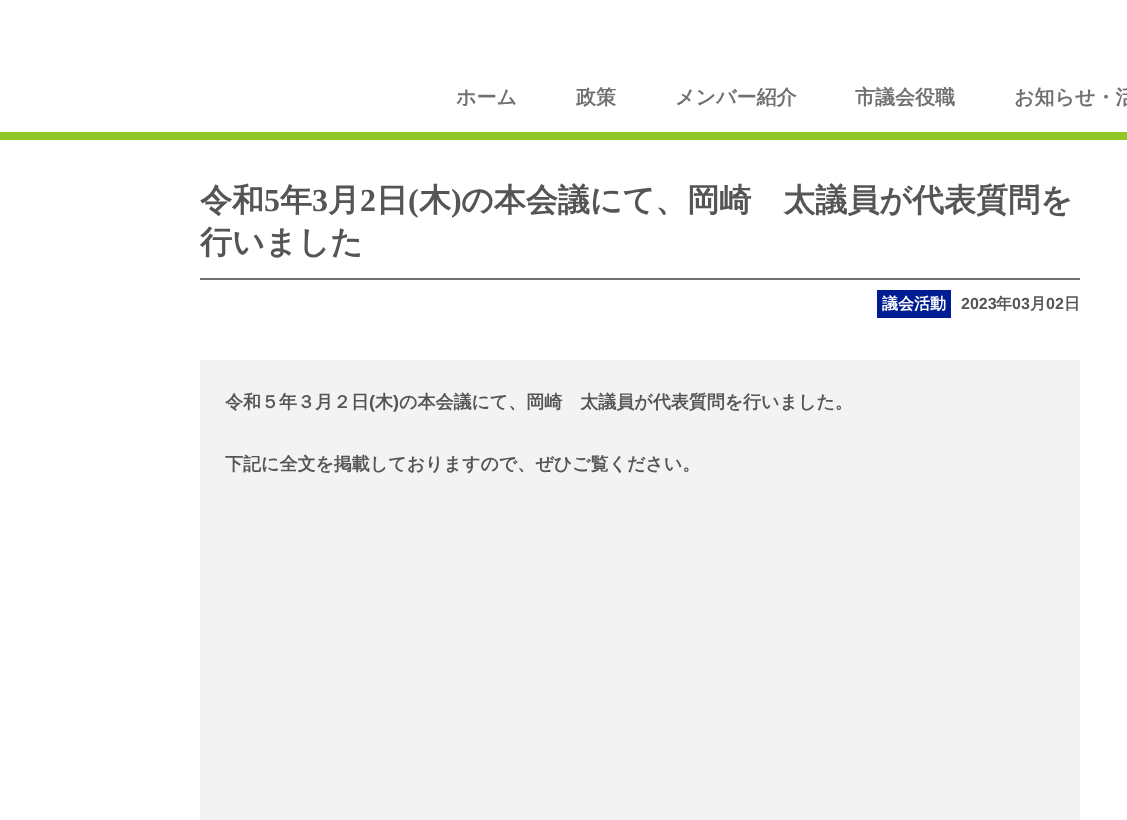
<?xml version="1.0" encoding="UTF-8"?>
<svg xmlns="http://www.w3.org/2000/svg" width="1127" height="820">
    <rect width="100%" height="100%" fill="#FFFFFF"/>
    <rect x="0" y="132" width="1127" height="8" fill="#90C724"/>
    <text x="456" y="104" font-family="WenQuanYi Zen Hei" font-size="20" font-weight="700" fill="#707070">ホーム</text>
    <text x="576" y="104" font-family="WenQuanYi Zen Hei" font-size="20" font-weight="700" fill="#707070">政策</text>
    <text x="675" y="104" font-family="WenQuanYi Zen Hei" font-size="20" font-weight="700" fill="#707070">メンバー紹介</text>
    <text x="855" y="104" font-family="WenQuanYi Zen Hei" font-size="20" font-weight="700" fill="#707070">市議会役職</text>
    <text x="1014" y="104" font-family="WenQuanYi Zen Hei" font-size="20" font-weight="700" fill="#707070">お知らせ・活</text>
    <rect x="200" y="278" width="880" height="2" fill="#707070"/>
    <text x="200" y="211" font-family="WenQuanYi Zen Hei" font-size="32" font-weight="700" fill="#555555">令和</text>
    <text x="264" y="211" font-family="Liberation Serif" font-size="32" font-weight="700" fill="#555555">5</text>
    <text x="280" y="211" font-family="WenQuanYi Zen Hei" font-size="32" font-weight="700" fill="#555555">年</text>
    <text x="312" y="211" font-family="Liberation Serif" font-size="32" font-weight="700" fill="#555555">3</text>
    <text x="328" y="211" font-family="WenQuanYi Zen Hei" font-size="32" font-weight="700" fill="#555555">月</text>
    <text x="360" y="211" font-family="Liberation Serif" font-size="32" font-weight="700" fill="#555555">2</text>
    <text x="376" y="211" font-family="WenQuanYi Zen Hei" font-size="32" font-weight="700" fill="#555555">日</text>
    <text x="408" y="211" font-family="Liberation Serif" font-size="32" font-weight="700" fill="#555555">(</text>
    <text x="419" y="211" font-family="WenQuanYi Zen Hei" font-size="32" font-weight="700" fill="#555555">木</text>
    <text x="451" y="211" font-family="Liberation Serif" font-size="32" font-weight="700" fill="#555555">)</text>
    <text x="461" y="211" font-family="WenQuanYi Zen Hei" font-size="32" font-weight="700" fill="#555555">の本会議にて、岡崎　太議員が代表質問を</text>
    <text x="200" y="253" font-family="WenQuanYi Zen Hei" font-size="32" font-weight="700" fill="#555555">行いました</text>
    <rect x="877" y="290" width="74" height="28" fill="#001C93"/>
    <text x="882" y="309" font-family="WenQuanYi Zen Hei" font-size="16" font-weight="700" fill="#FFFFFF">議会活動</text>
    <text x="961" y="309" font-family="Liberation Sans" font-size="16" font-weight="700" fill="#555555">2023</text>
    <text x="996" y="309" font-family="WenQuanYi Zen Hei" font-size="16" font-weight="700" fill="#555555">年</text>
    <text x="1012" y="309" font-family="Liberation Sans" font-size="16" font-weight="700" fill="#555555">03</text>
    <text x="1030" y="309" font-family="WenQuanYi Zen Hei" font-size="16" font-weight="700" fill="#555555">月</text>
    <text x="1046" y="309" font-family="Liberation Sans" font-size="16" font-weight="700" fill="#555555">02</text>
    <text x="1064" y="309" font-family="WenQuanYi Zen Hei" font-size="16" font-weight="700" fill="#555555">日</text>
    <rect x="200" y="360" width="880" height="460" fill="#F3F3F3"/>
    <text x="225" y="408" font-family="WenQuanYi Zen Hei" font-size="18" font-weight="700" fill="#555555">令和５年３月２日</text>
    <text x="369" y="408" font-family="Liberation Sans" font-size="18" font-weight="700" fill="#555555">(</text>
    <text x="375" y="408" font-family="WenQuanYi Zen Hei" font-size="18" font-weight="700" fill="#555555">木</text>
    <text x="393" y="408" font-family="Liberation Sans" font-size="18" font-weight="700" fill="#555555">)</text>
    <text x="399" y="408" font-family="WenQuanYi Zen Hei" font-size="18" font-weight="700" fill="#555555">の本会議にて、岡崎　太議員が代表質問を行いました。</text>
    <text x="225" y="470" font-family="WenQuanYi Zen Hei" font-size="18" font-weight="700" fill="#555555">下記に全文を掲載しておりますので、ぜひご覧ください。</text>
</svg>
